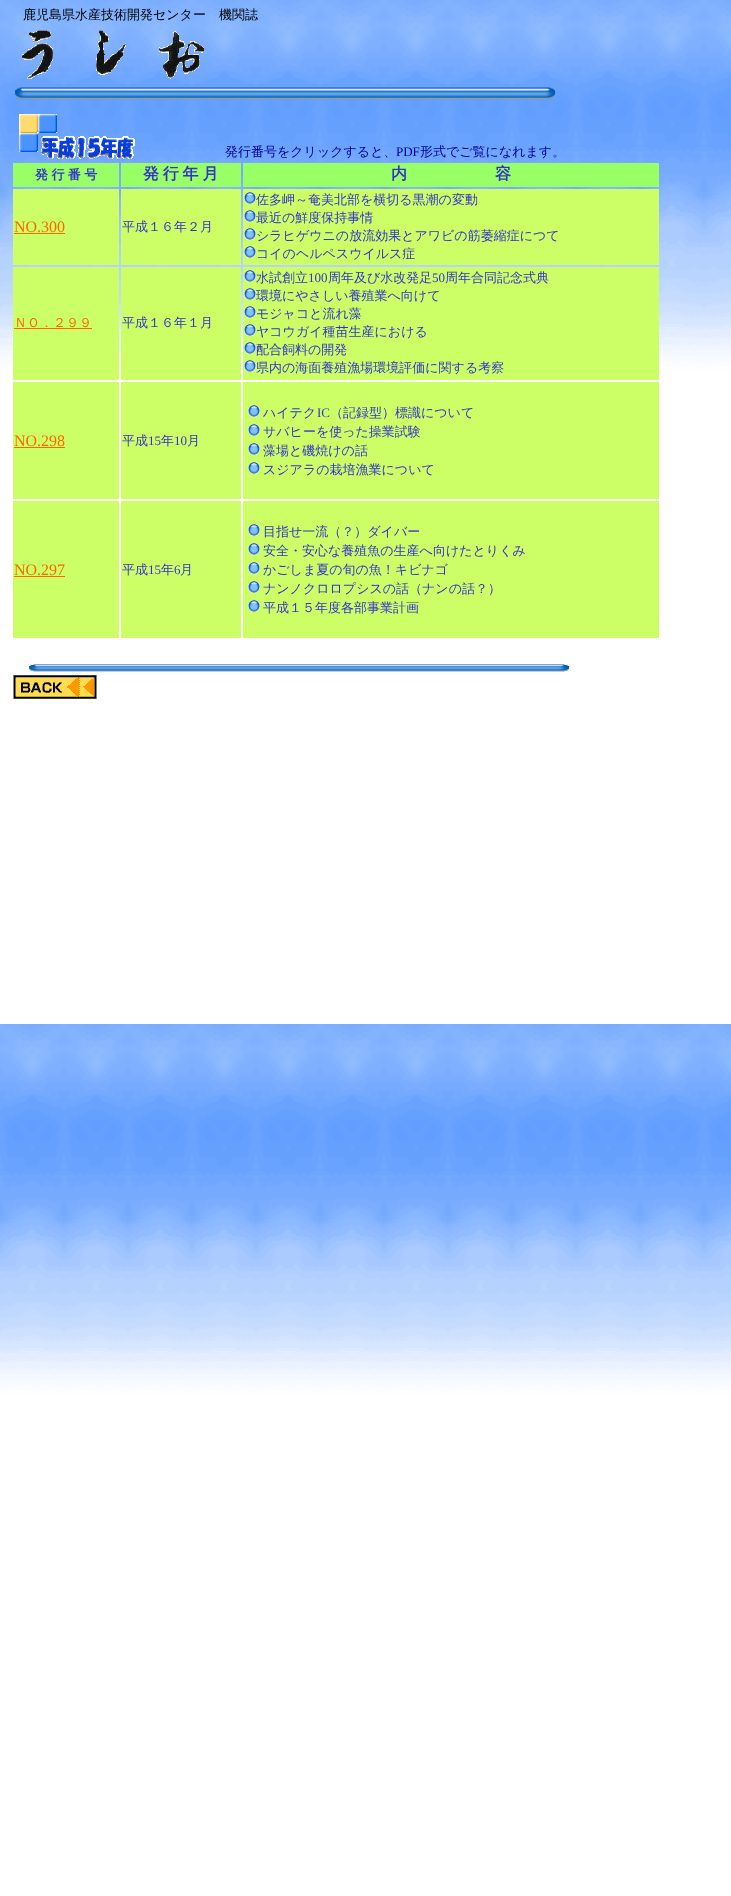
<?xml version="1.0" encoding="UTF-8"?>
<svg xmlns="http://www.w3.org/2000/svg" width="731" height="1896">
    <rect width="100%" height="100%" fill="#FFFFFF"/>
    <image x="0" y="0" width="731" height="1896" href="img_01.png"/>
    <text x="23" y="19" font-family="WenQuanYi Zen Hei" font-size="13" font-weight="500" fill="#000000">鹿児島県水産技術開発センター　機関誌</text>
    <image x="22" y="30" width="182" height="49" href="img_02.png"/>
    <image x="15" y="87" width="541" height="13" href="img_03.png"/>
    <image x="19" y="114" width="116" height="45" href="img_04.png"/>
    <text x="225" y="156" font-family="WenQuanYi Zen Hei" font-size="13" font-weight="500" fill="#000099">発行番号をクリックすると、</text>
    <text x="396" y="156" font-family="Liberation Serif" font-size="13" fill="#000099">PDF</text>
    <text x="420" y="156" font-family="WenQuanYi Zen Hei" font-size="13" font-weight="500" fill="#000099">形式でご覧になれます。</text>
    <rect x="13" y="163" width="106" height="24" fill="#99FF66"/>
    <text x="35" y="179" word-spacing="-0.5" font-family="WenQuanYi Zen Hei" font-size="13" font-weight="700" fill="#3333CC">発 行 番 号</text>
    <rect x="121" y="163" width="120" height="24" fill="#99FF66"/>
    <text x="143" y="179" word-spacing="-1" font-family="WenQuanYi Zen Hei" font-size="16" font-weight="700" fill="#3333CC">発 行 年 月</text>
    <rect x="243" y="163" width="416" height="24" fill="#99FF66"/>
    <text x="391" y="179" font-family="WenQuanYi Zen Hei" font-size="16" font-weight="700" fill="#3333CC">内</text>
    <text x="495" y="179" font-family="WenQuanYi Zen Hei" font-size="16" font-weight="700" fill="#3333CC">容</text>
    <rect x="13" y="189" width="106" height="76" fill="#CCFF66"/>
    <text x="14" y="232" font-family="Liberation Serif" font-size="16" fill="#FF6600">NO.300</text>
    <rect x="14" y="233" width="51" height="1" fill="#FF6600"/>
    <rect x="121" y="189" width="120" height="76" fill="#CCFF66"/>
    <text x="122" y="231" font-family="WenQuanYi Zen Hei" font-size="13" font-weight="500" fill="#3333CC">平成１６年２月</text>
    <rect x="243" y="189" width="416" height="76" fill="#CCFF66"/>
    <image x="244" y="192" width="12" height="12" href="img_05.png"/>
    <text x="256" y="204" font-family="WenQuanYi Zen Hei" font-size="13" font-weight="500" fill="#3333CC">佐多岬～奄美北部を横切る黒潮の変動</text>
    <image x="244" y="210" width="12" height="12" href="img_05.png"/>
    <text x="256" y="222" font-family="WenQuanYi Zen Hei" font-size="13" font-weight="500" fill="#3333CC">最近の鮮度保持事情</text>
    <image x="244" y="228" width="12" height="12" href="img_05.png"/>
    <text x="256" y="240" font-family="WenQuanYi Zen Hei" font-size="13" font-weight="500" fill="#3333CC">シラヒゲウニの放流効果とアワビの筋萎縮症につて</text>
    <image x="244" y="246" width="12" height="12" href="img_05.png"/>
    <text x="256" y="258" font-family="WenQuanYi Zen Hei" font-size="13" font-weight="500" fill="#3333CC">コイのヘルペスウイルス症</text>
    <rect x="13" y="267" width="106" height="113" fill="#CCFF66"/>
    <text x="14" y="327" font-family="WenQuanYi Zen Hei" font-size="13" font-weight="500" fill="#FF6600">ＮＯ．２９９</text>
    <rect x="14" y="328" width="78" height="1" fill="#FF6600"/>
    <rect x="121" y="267" width="120" height="113" fill="#CCFF66"/>
    <text x="122" y="327" font-family="WenQuanYi Zen Hei" font-size="13" font-weight="500" fill="#3333CC">平成１６年１月</text>
    <rect x="243" y="267" width="416" height="113" fill="#CCFF66"/>
    <image x="244" y="270" width="12" height="12" href="img_05.png"/>
    <text x="256" y="282" font-family="WenQuanYi Zen Hei" font-size="13" font-weight="500" fill="#3333CC">水試創立</text>
    <text x="308" y="282" font-family="Liberation Serif" font-size="13" fill="#3333CC">100</text>
    <text x="328" y="282" font-family="WenQuanYi Zen Hei" font-size="13" font-weight="500" fill="#3333CC">周年及び水改発足</text>
    <text x="432" y="282" font-family="Liberation Serif" font-size="13" fill="#3333CC">50</text>
    <text x="445" y="282" font-family="WenQuanYi Zen Hei" font-size="13" font-weight="500" fill="#3333CC">周年合同記念式典</text>
    <image x="244" y="288" width="12" height="12" href="img_05.png"/>
    <text x="256" y="300" font-family="WenQuanYi Zen Hei" font-size="13" font-weight="500" fill="#3333CC">環境にやさしい養殖業へ向けて</text>
    <image x="244" y="306" width="12" height="12" href="img_05.png"/>
    <text x="256" y="318" font-family="WenQuanYi Zen Hei" font-size="13" font-weight="500" fill="#3333CC">モジャコと流れ藻</text>
    <image x="244" y="324" width="12" height="12" href="img_05.png"/>
    <text x="256" y="336" font-family="WenQuanYi Zen Hei" font-size="13" font-weight="500" fill="#3333CC">ヤコウガイ種苗生産における</text>
    <image x="244" y="342" width="12" height="12" href="img_05.png"/>
    <text x="256" y="354" font-family="WenQuanYi Zen Hei" font-size="13" font-weight="500" fill="#3333CC">配合飼料の開発</text>
    <image x="244" y="360" width="12" height="12" href="img_05.png"/>
    <text x="256" y="372" font-family="WenQuanYi Zen Hei" font-size="13" font-weight="500" fill="#3333CC">県内の海面養殖漁場環境評価に関する考察</text>
    <rect x="13" y="382" width="106" height="117" fill="#CCFF66"/>
    <text x="14" y="446" font-family="Liberation Serif" font-size="16" fill="#FF6600">NO.298</text>
    <rect x="14" y="447" width="51" height="1" fill="#FF6600"/>
    <rect x="121" y="382" width="120" height="117" fill="#CCFF66"/>
    <text x="122" y="445" font-family="WenQuanYi Zen Hei" font-size="13" font-weight="500" fill="#3333CC">平成</text>
    <text x="148" y="445" font-family="Liberation Serif" font-size="13" fill="#3333CC">15</text>
    <text x="161" y="445" font-family="WenQuanYi Zen Hei" font-size="13" font-weight="500" fill="#3333CC">年</text>
    <text x="174" y="445" font-family="Liberation Serif" font-size="13" fill="#3333CC">10</text>
    <text x="187" y="445" font-family="WenQuanYi Zen Hei" font-size="13" font-weight="500" fill="#3333CC">月</text>
    <rect x="243" y="382" width="416" height="117" fill="#CCFF66"/>
    <image x="248" y="405" width="12" height="12" href="img_05.png"/>
    <text x="263" y="417" font-family="WenQuanYi Zen Hei" font-size="13" font-weight="500" fill="#3333CC">ハイテク</text>
    <text x="317" y="417" font-family="Liberation Serif" font-size="13" fill="#3333CC">IC</text>
    <text x="330" y="417" font-family="WenQuanYi Zen Hei" font-size="13" font-weight="500" fill="#3333CC">（記録型）標識について</text>
    <image x="248" y="424" width="12" height="12" href="img_05.png"/>
    <text x="263" y="436" font-family="WenQuanYi Zen Hei" font-size="13" font-weight="500" fill="#3333CC">サバヒーを使った操業試験</text>
    <image x="248" y="443" width="12" height="12" href="img_05.png"/>
    <text x="263" y="455" font-family="WenQuanYi Zen Hei" font-size="13" font-weight="500" fill="#3333CC">藻場と磯焼けの話</text>
    <image x="248" y="462" width="12" height="12" href="img_05.png"/>
    <text x="263" y="474" font-family="WenQuanYi Zen Hei" font-size="13" font-weight="500" fill="#3333CC">スジアラの栽培漁業について</text>
    <rect x="13" y="501" width="106" height="137" fill="#CCFF66"/>
    <text x="14" y="575" font-family="Liberation Serif" font-size="16" fill="#FF6600">NO.297</text>
    <rect x="14" y="576" width="51" height="1" fill="#FF6600"/>
    <rect x="121" y="501" width="120" height="137" fill="#CCFF66"/>
    <text x="122" y="574" font-family="WenQuanYi Zen Hei" font-size="13" font-weight="500" fill="#3333CC">平成</text>
    <text x="148" y="574" font-family="Liberation Serif" font-size="13" fill="#3333CC">15</text>
    <text x="161" y="574" font-family="WenQuanYi Zen Hei" font-size="13" font-weight="500" fill="#3333CC">年</text>
    <text x="174" y="574" font-family="Liberation Serif" font-size="13" fill="#3333CC">6</text>
    <text x="180" y="574" font-family="WenQuanYi Zen Hei" font-size="13" font-weight="500" fill="#3333CC">月</text>
    <rect x="243" y="501" width="416" height="137" fill="#CCFF66"/>
    <image x="248" y="524" width="12" height="12" href="img_05.png"/>
    <text x="263" y="536" font-family="WenQuanYi Zen Hei" font-size="13" font-weight="500" fill="#3333CC">目指せ一流（？）ダイバー</text>
    <image x="248" y="543" width="12" height="12" href="img_05.png"/>
    <text x="263" y="555" font-family="WenQuanYi Zen Hei" font-size="13" font-weight="500" fill="#3333CC">安全・安心な養殖魚の生産へ向けたとりくみ</text>
    <image x="248" y="562" width="12" height="12" href="img_05.png"/>
    <text x="263" y="574" font-family="WenQuanYi Zen Hei" font-size="13" font-weight="500" fill="#3333CC">かごしま夏の旬の魚！キビナゴ</text>
    <image x="248" y="581" width="12" height="12" href="img_05.png"/>
    <text x="263" y="593" font-family="WenQuanYi Zen Hei" font-size="13" font-weight="500" fill="#3333CC">ナンノクロロプシスの話（ナンの話？）</text>
    <image x="248" y="600" width="12" height="12" href="img_05.png"/>
    <text x="263" y="612" font-family="WenQuanYi Zen Hei" font-size="13" font-weight="500" fill="#3333CC">平成１５年度各部事業計画</text>
    <image x="29" y="664" width="541" height="8" href="img_06.png"/>
    <image x="13" y="675" width="84" height="24" href="img_07.png"/>
</svg>
